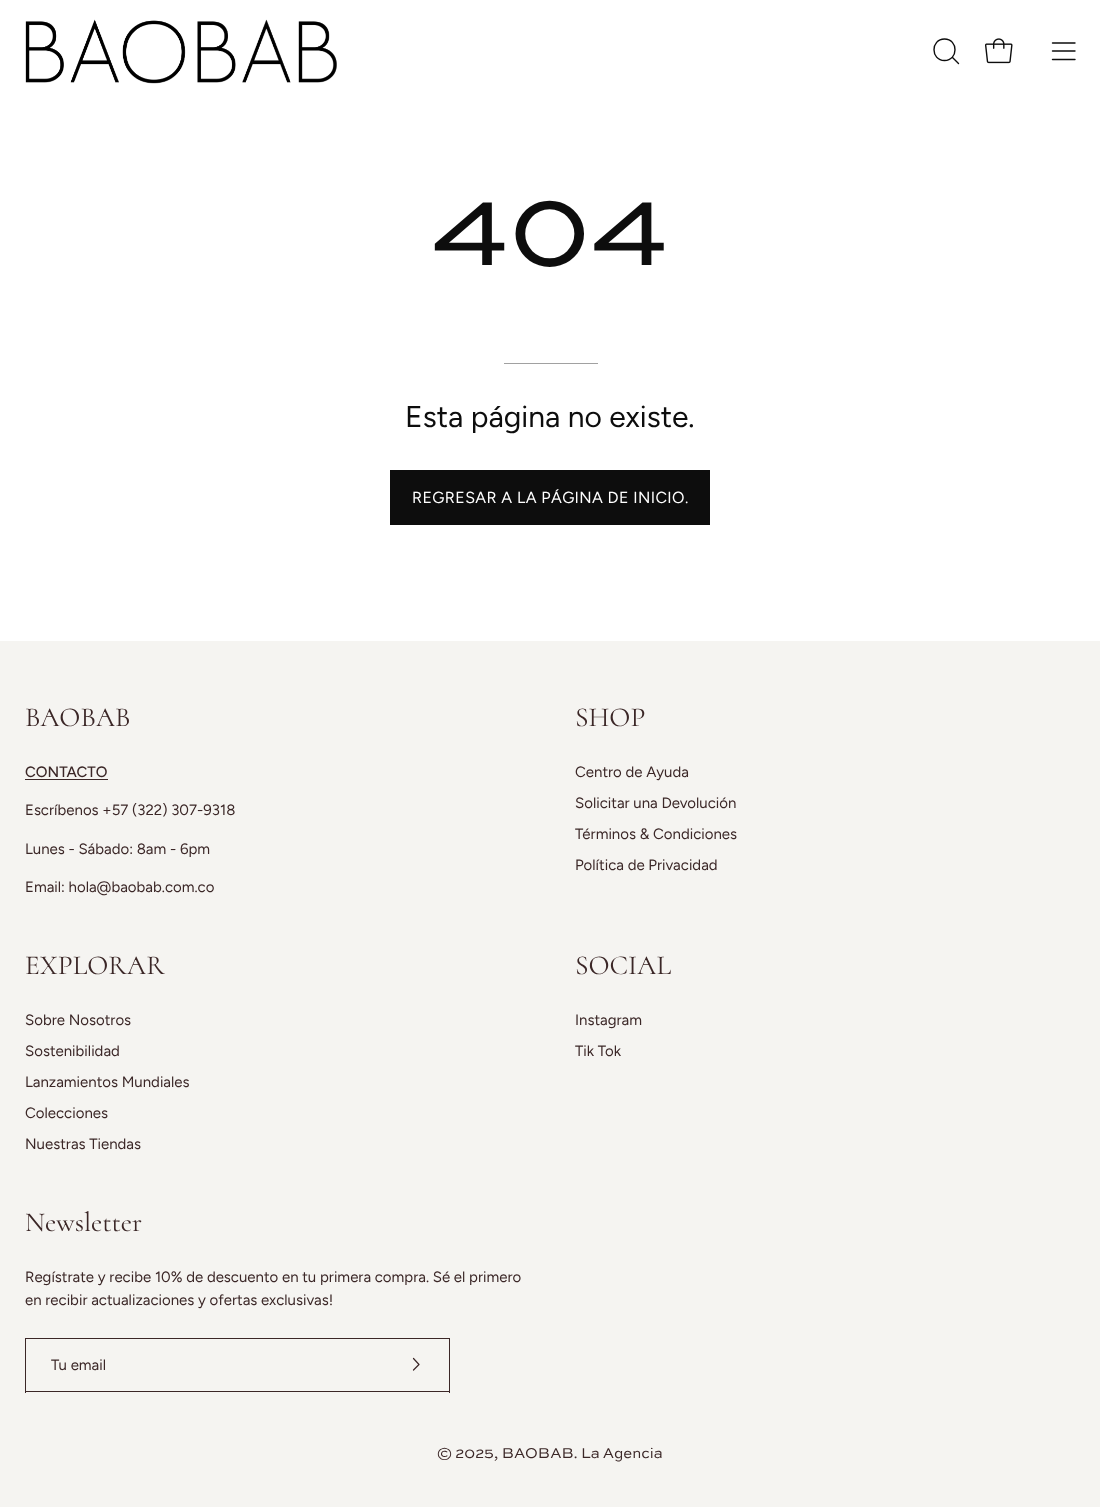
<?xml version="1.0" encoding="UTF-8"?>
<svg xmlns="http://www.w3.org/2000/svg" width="1100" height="1507">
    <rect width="100%" height="100%" fill="#FFFFFF"/>
    <image x="25" y="19" width="312" height="65" href="img_01.png"/>
    <path d="M 944.5 60.5 C 958.5 60.5 958.5 39 944.5 39 C 930.5 39 930.5 60.5 944.5 60.5 Z M 952.5 57.5 L 958.5 63.5" fill="none" stroke="#0D0D0D" stroke-width="1.4" stroke-linecap="round" stroke-linejoin="round"/>
    <image x="985" y="38" width="28" height="26" href="img_02.png"/>
    <path d="M 1052.5 51 H 1075 M 1052.5 43 H 1075 M 1052.5 59.5 H 1075" fill="none" stroke="#0D0D0D" stroke-width="1.4" stroke-linecap="round" stroke-linejoin="round"/>
    <text x="431" y="265" font-family="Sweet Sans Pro" font-size="112.5" fill="#0D0D0D">404</text>
    <rect x="504" y="363" width="94" height="1" fill="#A1A1A1"/>
    <text x="405" y="427" font-family="Figtree" font-size="30" fill="#0D0D0D">Esta página no existe.</text>
    <rect x="390" y="470" width="320" height="55" fill="#0D0D0D"/>
    <text x="412" y="503" font-family="Figtree" font-size="16" letter-spacing="0.4" fill="#FFFFFF">REGRESAR A LA PÁGINA DE INICIO.</text>
    <rect x="0" y="641" width="1100" height="866" fill="#F5F4F1"/>
    <text x="25" y="726" font-family="Cormorant" font-size="27.5" fill="#3B2727">BAOBAB</text>
    <text x="25" y="777" font-family="Figtree" font-size="15" font-weight="500" fill="#3B2727">CONTACTO</text>
    <rect x="25" y="779" width="83" height="1" fill="#3B2727"/>
    <text x="25" y="815" font-family="Figtree" font-size="15" fill="#3B2727">Escríbenos +57 (322) 307-9318</text>
    <text x="25" y="854" font-family="Figtree" font-size="15" fill="#3B2727">Lunes - Sábado: 8am - 6pm</text>
    <text x="25" y="892" font-family="Figtree" font-size="15" fill="#3B2727">Email: hola@baobab.com.co</text>
    <text x="575" y="726" font-family="Cormorant" font-size="27.5" fill="#3B2727">SHOP</text>
    <text x="575" y="777" font-family="Figtree" font-size="15" fill="#3B2727">Centro de Ayuda</text>
    <text x="575" y="808" font-family="Figtree" font-size="15" fill="#3B2727">Solicitar una Devolución</text>
    <text x="575" y="839" font-family="Figtree" font-size="15" fill="#3B2727">Términos &amp; Condiciones</text>
    <text x="575" y="870" font-family="Figtree" font-size="15" fill="#3B2727">Política de Privacidad</text>
    <text x="25" y="974" font-family="Cormorant" font-size="27.5" fill="#3B2727">EXPLORAR</text>
    <text x="25" y="1025" font-family="Figtree" font-size="15" fill="#3B2727">Sobre Nosotros</text>
    <text x="25" y="1056" font-family="Figtree" font-size="15" fill="#3B2727">Sostenibilidad</text>
    <text x="25" y="1087" font-family="Figtree" font-size="15" fill="#3B2727">Lanzamientos Mundiales</text>
    <text x="25" y="1118" font-family="Figtree" font-size="15" fill="#3B2727">Colecciones</text>
    <text x="25" y="1149" font-family="Figtree" font-size="15" fill="#3B2727">Nuestras Tiendas</text>
    <text x="575" y="974" font-family="Cormorant" font-size="27.5" fill="#3B2727">SOCIAL</text>
    <text x="575" y="1025" font-family="Figtree" font-size="15" fill="#3B2727">Instagram</text>
    <text x="575" y="1056" font-family="Figtree" font-size="15" fill="#3B2727">Tik Tok</text>
    <text x="25" y="1231" font-family="Cormorant" font-size="27.5" fill="#3B2727">Newsletter</text>
    <text font-family="Figtree" font-size="15" fill="#3B2727">
        <tspan x="25" y="1282">Regístrate y recibe 10% de descuento en tu primera compra. Sé el primero</tspan>
        <tspan x="25" y="1305">en recibir actualizaciones y ofertas exclusivas!</tspan>
    </text>
    <rect x="25" y="1338" width="425" height="1" fill="#3B2727"/>
    <rect x="25" y="1391" width="358" height="1" fill="#3B2727"/>
    <rect x="25" y="1338" width="1" height="55" fill="#3B2727"/>
    <text x="51" y="1370" font-family="Figtree" font-size="15" fill="#3B2727">Tu email</text>
    <rect x="449" y="1338" width="1" height="55" fill="#3B2727"/>
    <rect x="383" y="1391" width="67" height="1" fill="#3B2727"/>
    <path d="M 413.5 1358.5 L 419 1364.5 L 413.5 1370" fill="none" stroke="#3B2727" stroke-width="1.2" stroke-linecap="round" stroke-linejoin="round"/>
    <text x="437" y="1458" font-family="Sweet Sans Pro" font-size="15" fill="#3B2727">© 2025, BAOBAB. La Agencia</text>
</svg>
